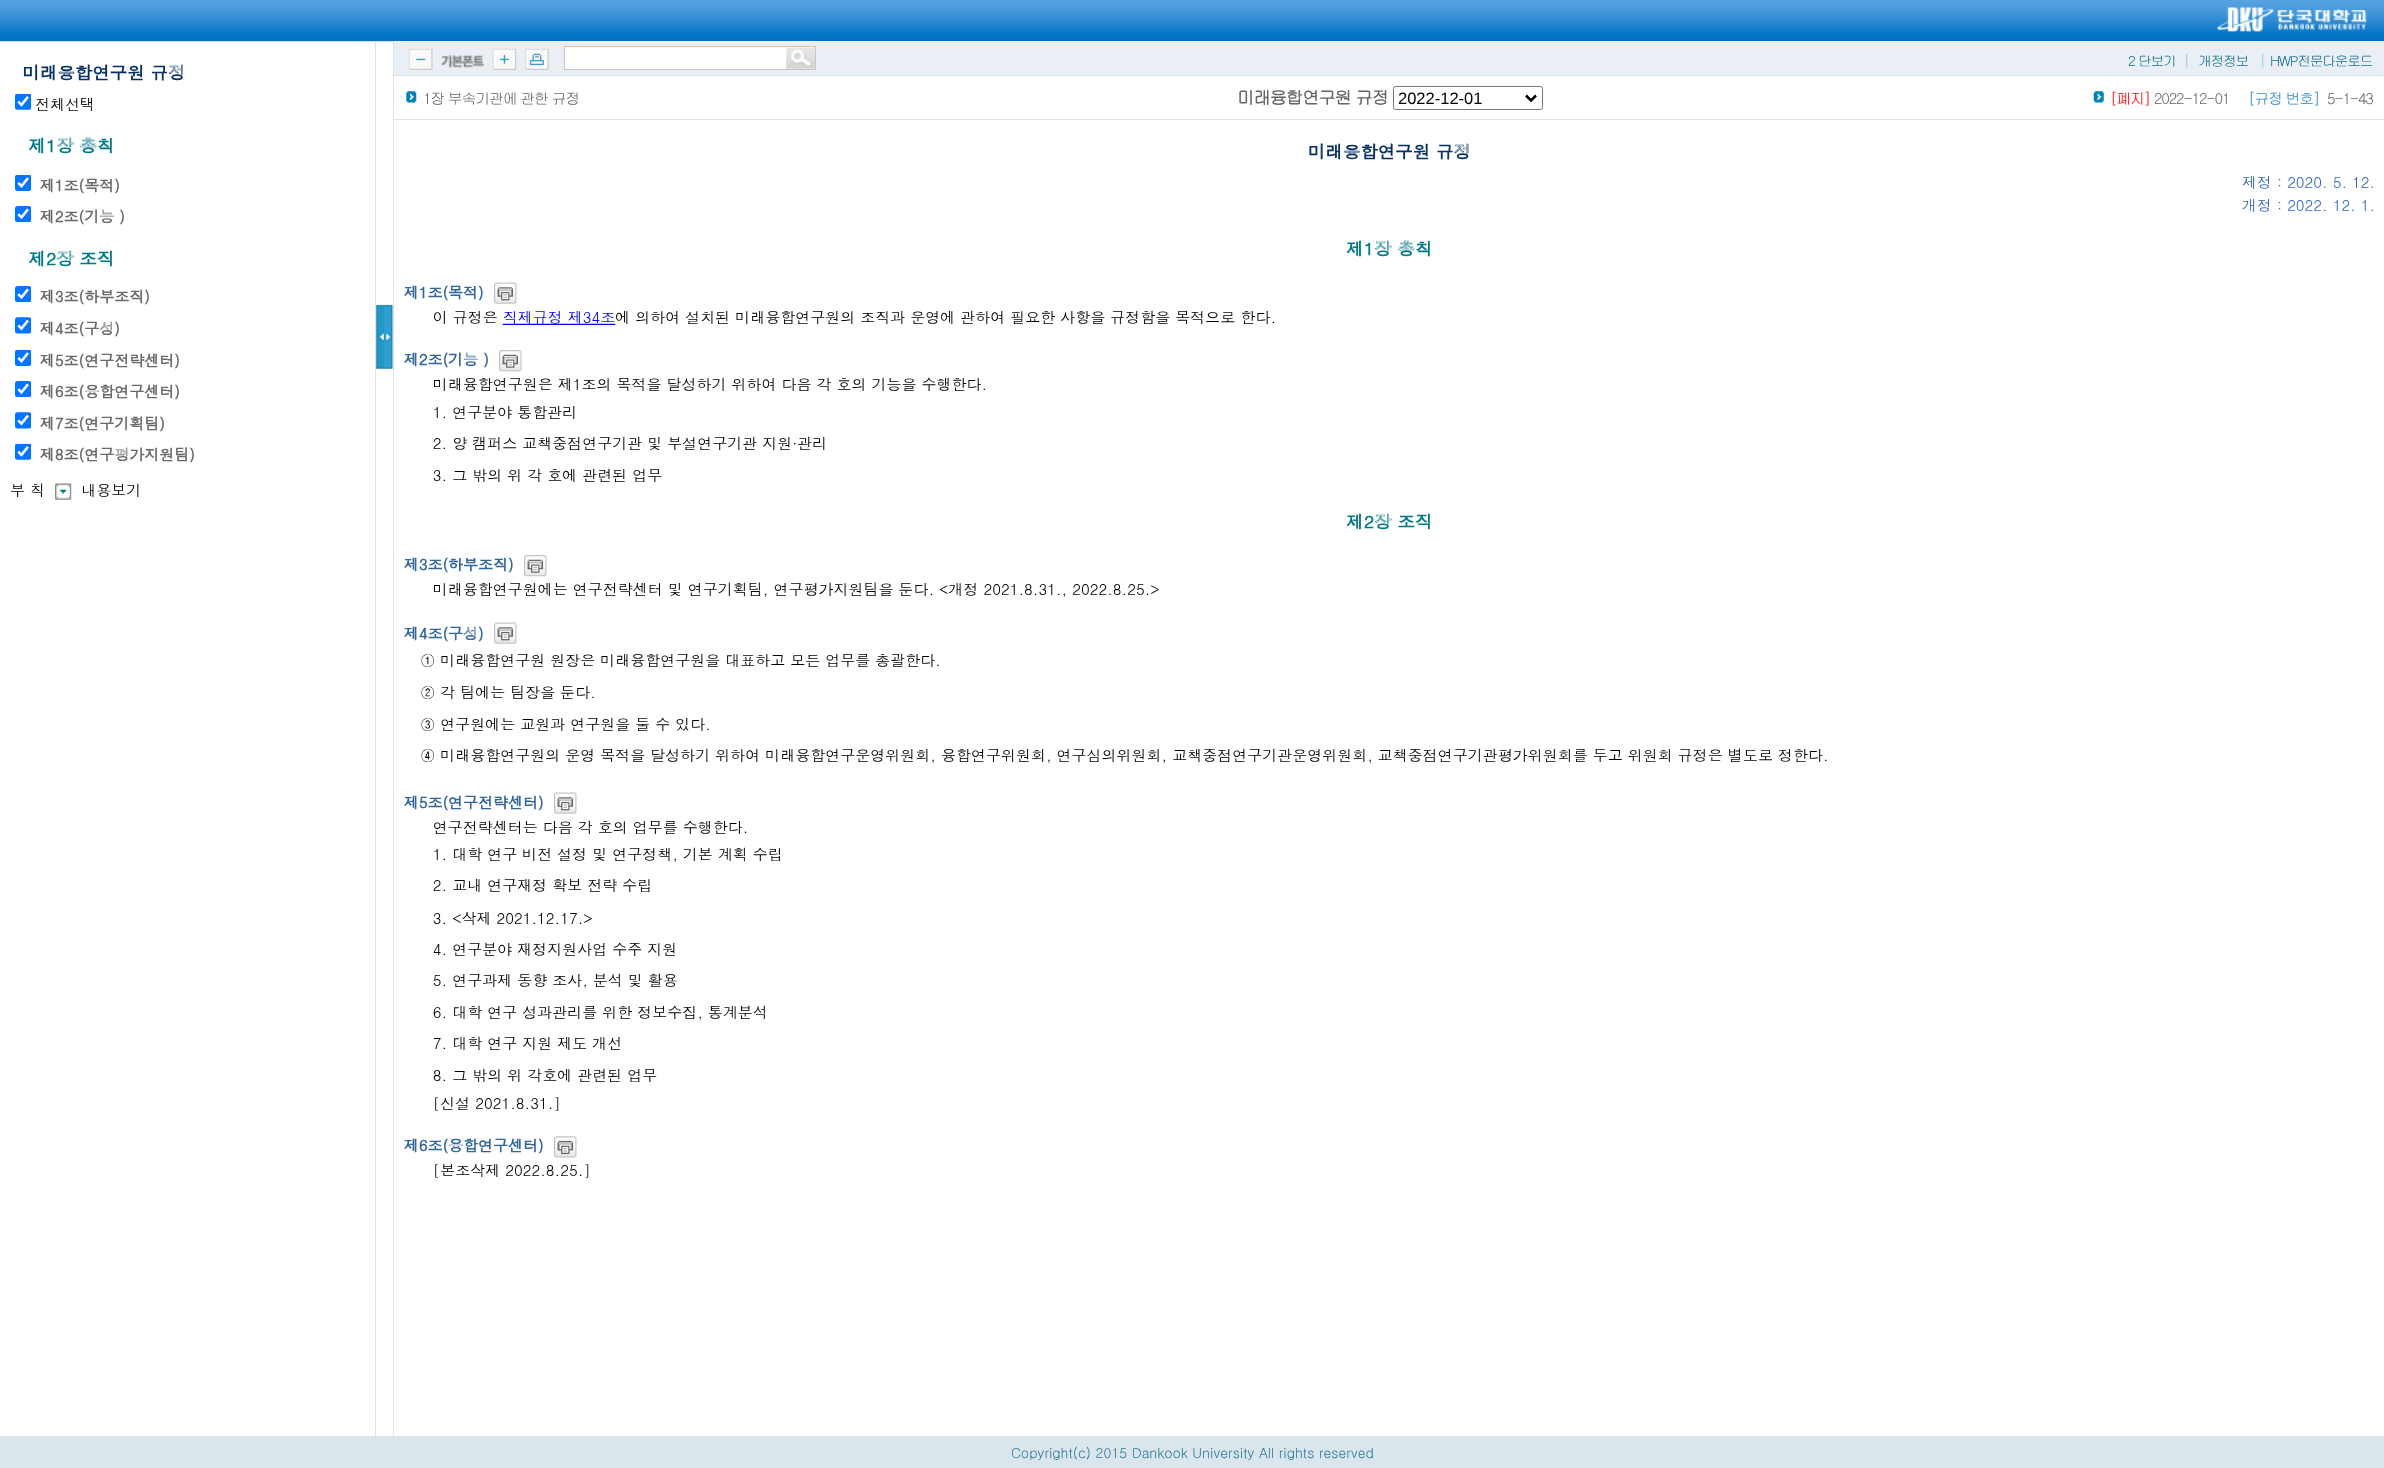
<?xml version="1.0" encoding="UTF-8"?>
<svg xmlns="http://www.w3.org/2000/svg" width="2384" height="1468">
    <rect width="100%" height="100%" fill="#FFFFFF"/>
    <image x="0" y="0" width="2384" height="42" href="img_01.png"/>
    <image x="2217" y="7" width="150" height="25" href="img_02.png"/>
    <rect x="375" y="41" width="1" height="1395" fill="#E1E1E1"/>
    <image x="11" y="64" width="183" height="436" href="img_03.png"/>
    <rect x="393" y="41" width="1" height="1395" fill="#E1E1E1"/>
    <rect x="394" y="41" width="1990" height="34" fill="#E9EFF4"/>
    <rect x="394" y="75" width="1990" height="1" fill="#E1E1E1"/>
    <image x="408" y="48" width="25" height="22" href="img_04.png"/>
    <image x="441" y="55" width="43" height="13" href="img_05.png"/>
    <image x="492" y="48" width="25" height="22" href="img_06.png"/>
    <image x="525" y="48" width="24" height="22" href="img_07.png"/>
    <rect x="564.5" y="46.5" width="251" height="23" fill="#FFFFFF" stroke="#C6C6C6"/>
    <image x="786" y="47" width="29" height="22" href="img_08.png"/>
    <text x="2128" y="66" font-family="Gulim" font-size="13.75" letter-spacing="-1.25" fill="#146D95">2 단보기</text>
    <text x="2183" y="66" font-family="Gulim" font-size="15" letter-spacing="-1.25" fill="#98C8DD">|</text>
    <text x="2198" y="66" font-family="Gulim" font-size="13.75" letter-spacing="-1.25" fill="#146D95">개정정보</text>
    <text x="2259" y="66" font-family="Gulim" font-size="15" letter-spacing="-1.25" fill="#98C8DD">|</text>
    <text x="2270" y="66" font-family="Gulim" font-size="13.75" letter-spacing="-1.25" fill="#146D95">HWP전문다운로드</text>
    <rect x="394" y="119" width="1990" height="1" fill="#E1E1E1"/>
    <image x="406" y="91" width="11" height="12" href="img_09.png"/>
    <text x="423" y="104" font-family="Gulim" font-size="15" letter-spacing="-1.25" fill="#666666">1장 부속기관에 관한 규정</text>
    <text x="1237" y="104" font-family="Gulim" font-size="17.5" font-weight="700" letter-spacing="-1.25" fill="#666666">미래융합연구원 규정</text>
    <rect x="1393.5" y="86.5" width="149" height="23" rx="2" fill="none" stroke="#767676"/>
    <path d="M 1526 95.5 L 1531 100.5 L 1536 95.5" fill="none" stroke="#000000" stroke-width="2.5"/>
    <text x="1398" y="104" font-family="Liberation Sans" font-size="16.5" fill="#000000">2022-12-01</text>
    <image x="2093" y="91" width="11" height="12" href="img_10.png"/>
    <text x="2110" y="104" font-family="Gulim" font-size="15" letter-spacing="-1.25" fill="#FF0000">[폐지]</text>
    <text x="2154" y="104" font-family="Gulim" font-size="15" letter-spacing="-1.25" fill="#666666">2022-12-01</text>
    <text x="2248" y="104" font-family="Gulim" font-size="15" letter-spacing="-1.25" fill="#2D87C9">[규정 번호]</text>
    <text x="2327" y="104" font-family="Gulim" font-size="15" letter-spacing="-1.25" fill="#666666">5-1-43</text>
    <image x="404" y="143" width="1969" height="1035" href="img_11.png"/>
    <image x="376" y="304" width="17" height="65" href="img_12.png"/>
    <rect x="0" y="1436" width="2384" height="32" fill="#DBE5EC"/>
    <text x="1011" y="1458" font-family="Gulim" font-size="13.75" fill="#2C799B">Copyright(c) 2015 Dankook University All rights reserved</text>
</svg>
